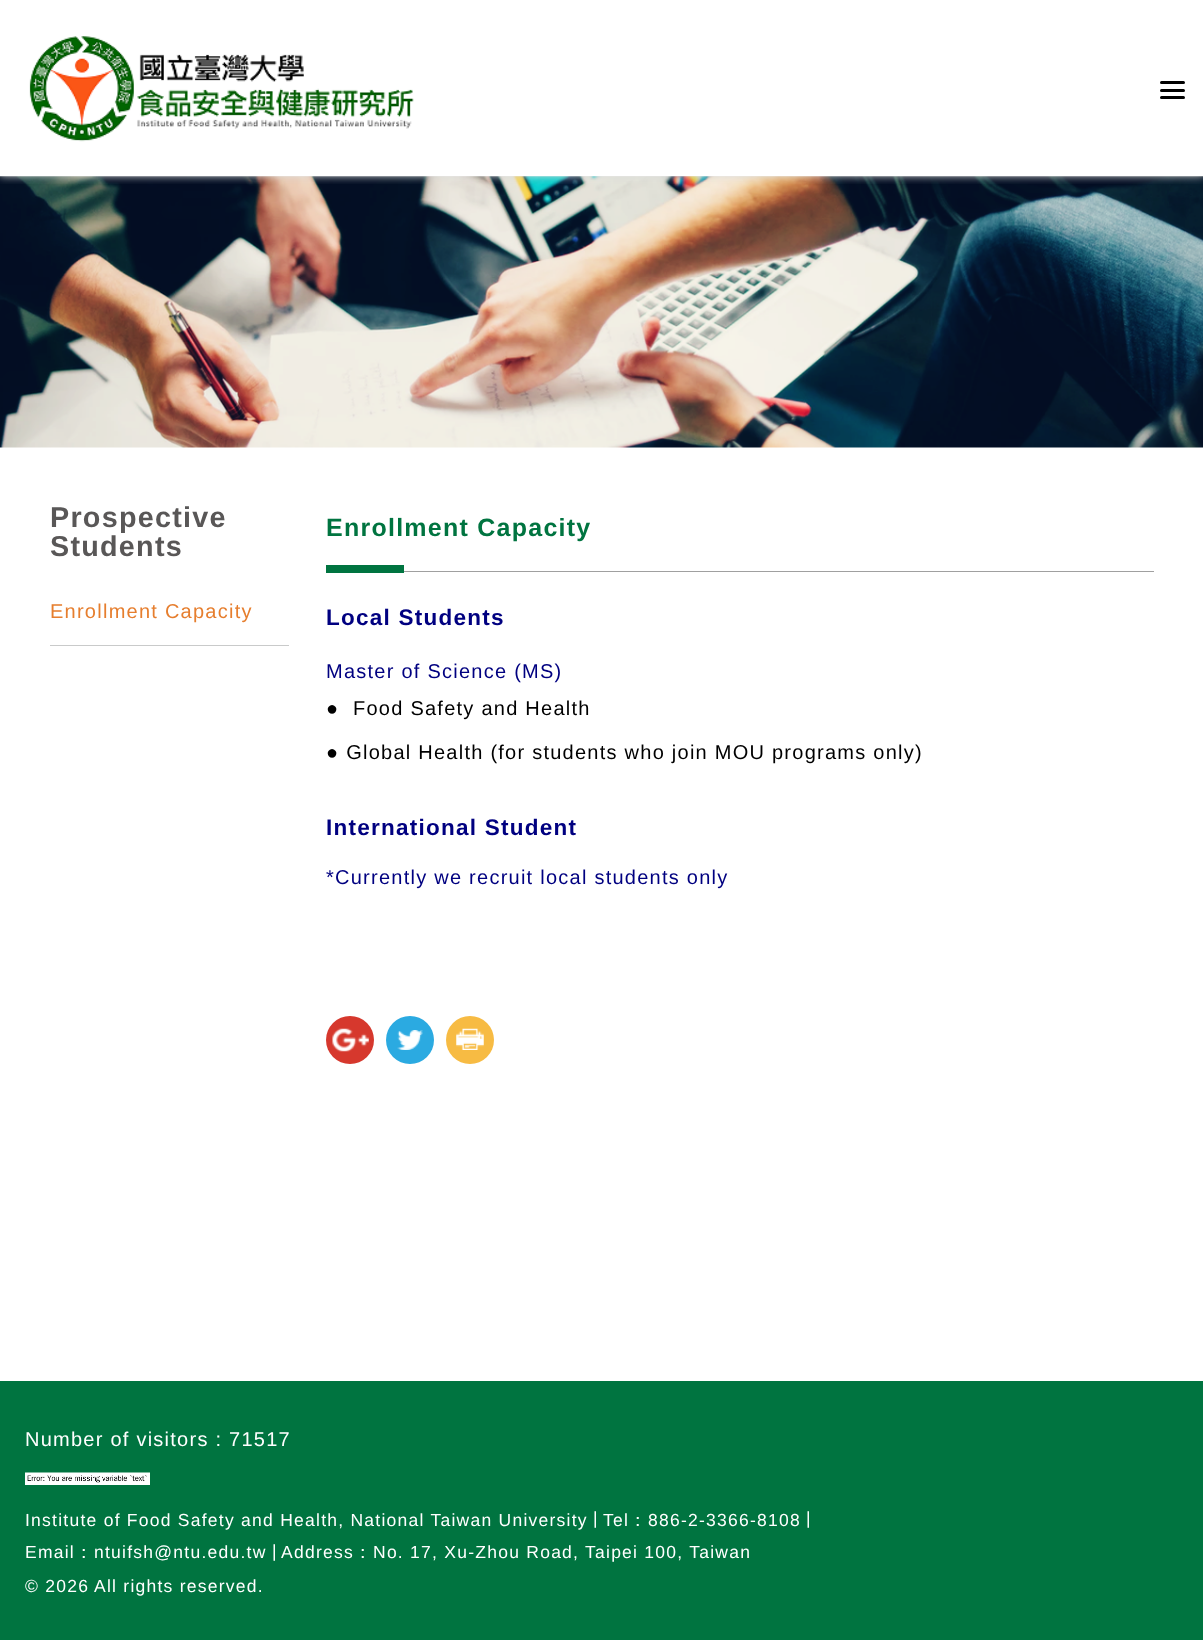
<?xml version="1.0" encoding="UTF-8"?>
<svg xmlns="http://www.w3.org/2000/svg" width="1203" height="1640">
    <defs>
        <clipPath id="clip1"><rect x="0" y="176" width="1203" height="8"/></clipPath>
        <filter id="blur1" x="-50%" y="-200%" width="200%" height="500%"><feGaussianBlur stdDeviation="4"/></filter>
    </defs>
    <rect width="100%" height="100%" fill="#FFFFFF"/>
    <image x="0" y="176" width="1203" height="272" href="img_02.png"/>
    <g clip-path="url(#clip1)">
        <rect x="0" y="0" width="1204" height="176" fill="#D9DAD8" filter="url(#blur1)"/>
    </g>
    <image x="29" y="36" width="385" height="106" href="img_01.png"/>
    <rect x="1160" y="81" width="25" height="3" rx="1.5" fill="#000000"/>
    <rect x="1160" y="89" width="25" height="3" rx="1.5" fill="#000000"/>
    <rect x="1160" y="96" width="25" height="3" rx="1.5" fill="#000000"/>
    <text font-family="Liberation Sans" font-size="28.75" font-weight="700" letter-spacing="1.25" fill="#595757">
        <tspan x="50" y="527">Prospective</tspan>
        <tspan x="50" y="556">Students</tspan>
    </text>
    <rect x="50" y="645" width="239" height="1" fill="#C9CACA"/>
    <text x="50" y="618" font-family="Liberation Sans" font-size="20" letter-spacing="1.25" fill="#E67E2E">Enrollment Capacity</text>
    <rect x="404" y="571" width="750" height="1" fill="#A0A0A0"/>
    <text x="326" y="536" font-family="Liberation Sans" font-size="25" font-weight="700" letter-spacing="1.25" fill="#007440">Enrollment Capacity</text>
    <rect x="326" y="565" width="78" height="8" fill="#007440"/>
    <text x="326" y="625" font-family="Liberation Sans" font-size="22.5" font-weight="700" letter-spacing="1.25" fill="#000080">Local Students</text>
    <text x="326" y="678" font-family="Liberation Sans" font-size="20" letter-spacing="1.25" fill="#000080">Master of Science (MS)</text>
    <text x="326" y="715" font-family="Liberation Sans" font-size="20" letter-spacing="1.25" fill="#000000">●</text>
    <text x="353" y="715" font-family="Liberation Sans" font-size="20" letter-spacing="1.25" fill="#000000">Food Safety and Health</text>
    <text x="326" y="759" font-family="Liberation Sans" font-size="20" letter-spacing="1.25" fill="#000000">● Global Health (for students who join MOU programs only)</text>
    <text x="326" y="835" font-family="Liberation Sans" font-size="22.5" font-weight="700" letter-spacing="1.25" fill="#000080">International Student</text>
    <text x="326" y="884" font-family="Liberation Sans" font-size="20" letter-spacing="1.25" fill="#000080">*Currently we recruit local students only</text>
    <circle cx="350" cy="1040" r="24" fill="#D6382D"/>
    <image x="332" y="1028" width="37" height="24" href="img_03.png"/>
    <circle cx="410" cy="1040" r="24" fill="#2BAAE1"/>
    <image x="397" y="1030" width="26" height="20" href="img_04.png"/>
    <circle cx="470" cy="1040" r="24" fill="#F7BB43"/>
    <image x="456" y="1028" width="28" height="22" href="img_05.png"/>
    <rect x="0" y="1381" width="1203" height="259" fill="#007440"/>
    <text x="25" y="1446" font-family="Liberation Sans" font-size="20" letter-spacing="1.25" fill="#FFFFFF">Number of visitors : 71517</text>
    <image x="25" y="1472" width="125" height="13" href="img_06.png"/>
    <text x="25" y="1526" font-family="Liberation Sans" font-size="17.5" letter-spacing="1.25" fill="#FFFFFF">Institute of Food Safety and Health, National Taiwan University</text>
    <text x="593" y="1524" font-family="Liberation Sans" font-size="17.5" letter-spacing="1.25" fill="#FFFFFF">|</text>
    <text x="603" y="1526" font-family="Liberation Sans" font-size="17.5" letter-spacing="1.25" fill="#FFFFFF">Tel</text>
    <text x="629" y="1526" font-family="WenQuanYi Zen Hei" font-size="17.5" font-weight="500" letter-spacing="1.25" fill="#FFFFFF">：</text>
    <text x="648" y="1526" font-family="Liberation Sans" font-size="17.5" letter-spacing="1.25" fill="#FFFFFF">886-2-3366-8108</text>
    <text x="806" y="1524" font-family="Liberation Sans" font-size="17.5" letter-spacing="1.25" fill="#FFFFFF">|</text>
    <text x="25" y="1558" font-family="Liberation Sans" font-size="17.5" letter-spacing="1.25" fill="#FFFFFF">Email</text>
    <text x="75" y="1558" font-family="WenQuanYi Zen Hei" font-size="17.5" font-weight="500" letter-spacing="1.25" fill="#FFFFFF">：</text>
    <text x="94" y="1558" font-family="Liberation Sans" font-size="17.5" letter-spacing="1.25" fill="#FFFFFF">ntuifsh@ntu.edu.tw</text>
    <text x="272" y="1557" font-family="Liberation Sans" font-size="17.5" letter-spacing="1.25" fill="#FFFFFF">|</text>
    <text x="281" y="1558" font-family="Liberation Sans" font-size="17.5" letter-spacing="1.25" fill="#FFFFFF">Address</text>
    <text x="354" y="1558" font-family="WenQuanYi Zen Hei" font-size="17.5" font-weight="500" letter-spacing="1.25" fill="#FFFFFF">：</text>
    <text x="373" y="1558" font-family="Liberation Sans" font-size="17.5" letter-spacing="1.25" fill="#FFFFFF">No. 17, Xu-Zhou Road, Taipei 100, Taiwan</text>
    <text x="25" y="1592" font-family="Liberation Sans" font-size="17.5" letter-spacing="1.25" fill="#FFFFFF">© 2026</text>
    <text x="94" y="1592" font-family="Liberation Sans" font-size="17.5" letter-spacing="1.25" fill="#FFFFFF">All rights reserved.</text>
</svg>
